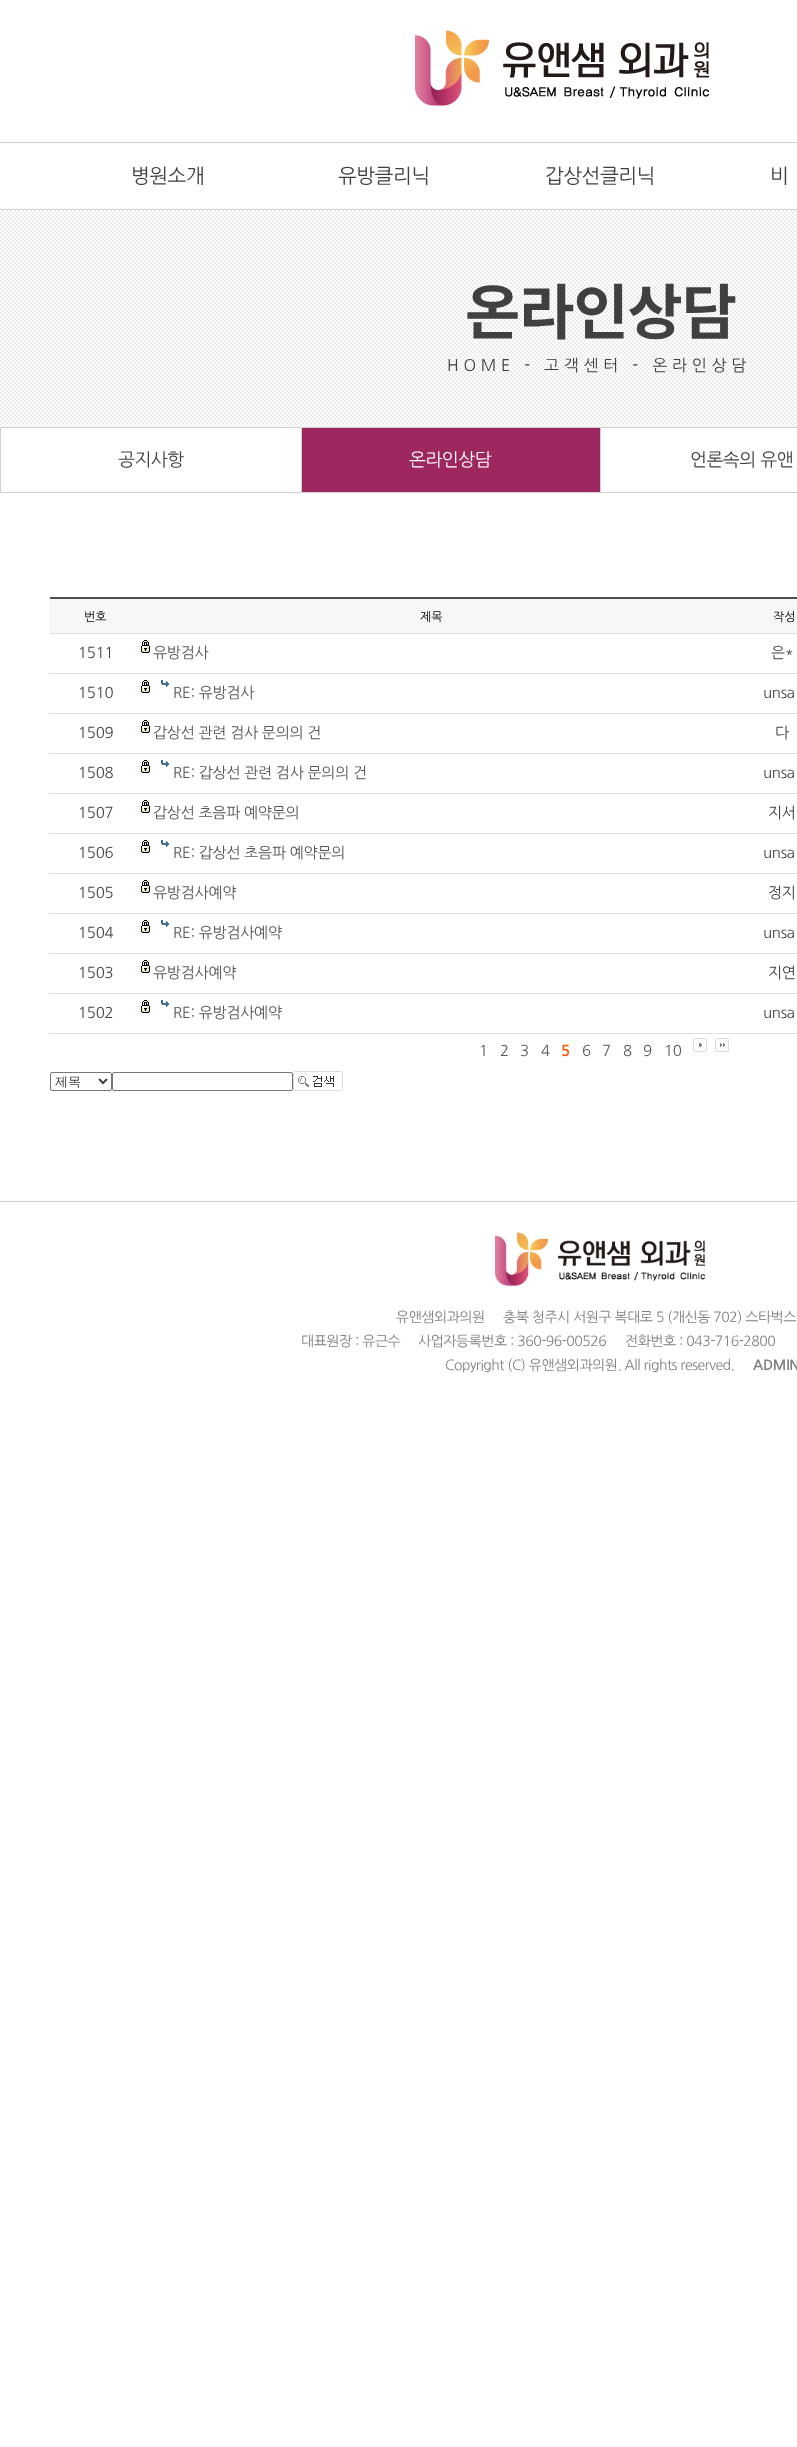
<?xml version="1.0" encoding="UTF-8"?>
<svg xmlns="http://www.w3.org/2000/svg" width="797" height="2447">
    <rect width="100%" height="100%" fill="#FFFFFF"/>
    <image x="415" y="30" width="294" height="76" href="img_01.png"/>
    <rect x="0" y="142" width="797" height="1" fill="#D0D0D0"/>
    <rect x="0" y="209" width="797" height="1" fill="#D0D0D0"/>
    <text x="131" y="183" font-family="NanumGothic" font-size="20" letter-spacing="-0.5" fill="#404040">병원소개</text>
    <text x="338" y="183" font-family="NanumGothic" font-size="20" letter-spacing="-0.5" fill="#404040">유방클리닉</text>
    <text x="545" y="183" font-family="NanumGothic" font-size="20" letter-spacing="-0.5" fill="#404040">갑상선클리닉</text>
    <text x="770" y="183" font-family="NanumGothic" font-size="20" letter-spacing="-0.5" fill="#404040">비</text>
    <image x="0" y="210" width="797" height="217" href="img_02.png"/>
    <text x="465" y="334" font-family="Noto Sans KR" font-size="60" font-weight="700" letter-spacing="-1" fill="#404040">온라인상담</text>
    <text x="447" y="371" font-family="NanumGothic" font-size="16" letter-spacing="4.75" fill="#404040">HOME - 고객센터 - 온라인상담</text>
    <rect x="0.5" y="427.5" width="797" height="65" fill="none" stroke="#D0D0D0"/>
    <text x="118" y="466" font-family="NanumGothic" font-size="18" letter-spacing="-0.5" fill="#404040">공지사항</text>
    <rect x="301" y="428" width="1" height="64" fill="#D0D0D0"/>
    <rect x="302" y="428" width="298" height="64" fill="#9D275E"/>
    <text x="409" y="466" font-family="NanumGothic" font-size="18" letter-spacing="-0.5" fill="#FFFFFF">온라인상담</text>
    <rect x="600" y="428" width="1" height="64" fill="#D0D0D0"/>
    <text x="690" y="466" font-family="NanumGothic" font-size="18" letter-spacing="-0.5" fill="#404040">언론속의 유앤</text>
    <rect x="50" y="597" width="747" height="2" fill="#505050"/>
    <rect x="50" y="599" width="747" height="34" fill="#F7F7F7"/>
    <text x="84" y="621" font-family="NanumGothic" font-size="12" fill="#000000">번호</text>
    <text x="420" y="621" font-family="NanumGothic" font-size="12" fill="#000000">제목</text>
    <rect x="50" y="633" width="747" height="1" fill="#E0E0E0"/>
    <text x="773" y="621" font-family="NanumGothic" font-size="12" fill="#000000">작성</text>
    <text x="78" y="658" font-family="NanumGothic" font-size="15" letter-spacing="-0.25" fill="#404040">1511</text>
    <image x="141" y="640" width="9" height="13" href="img_03.png"/>
    <text x="153" y="658" font-family="NanumGothic" font-size="15" letter-spacing="-0.25" fill="#555555">유방검사</text>
    <rect x="50" y="673" width="747" height="1" fill="#E0E0E0"/>
    <text x="771" y="658" font-family="NanumGothic" font-size="15" letter-spacing="-0.25" fill="#404040">은*</text>
    <text x="78" y="698" font-family="NanumGothic" font-size="15" letter-spacing="-0.25" fill="#404040">1510</text>
    <image x="141" y="680" width="9" height="13" href="img_03.png"/>
    <image x="161" y="680" width="8" height="7" href="img_04.png"/>
    <text x="173" y="698" font-family="NanumGothic" font-size="15" letter-spacing="-0.25" fill="#555555">RE: 유방검사</text>
    <rect x="50" y="713" width="747" height="1" fill="#E0E0E0"/>
    <text x="763" y="698" font-family="NanumGothic" font-size="15" letter-spacing="-0.25" fill="#404040">unsa</text>
    <text x="78" y="738" font-family="NanumGothic" font-size="15" letter-spacing="-0.25" fill="#404040">1509</text>
    <image x="141" y="720" width="9" height="13" href="img_03.png"/>
    <text x="153" y="738" font-family="NanumGothic" font-size="15" letter-spacing="-0.25" fill="#555555">갑상선 관련 검사 문의의 건</text>
    <rect x="50" y="753" width="747" height="1" fill="#E0E0E0"/>
    <text x="775" y="738" font-family="NanumGothic" font-size="15" letter-spacing="-0.25" fill="#404040">다</text>
    <text x="78" y="778" font-family="NanumGothic" font-size="15" letter-spacing="-0.25" fill="#404040">1508</text>
    <image x="141" y="760" width="9" height="13" href="img_03.png"/>
    <image x="161" y="760" width="8" height="7" href="img_04.png"/>
    <text x="173" y="778" font-family="NanumGothic" font-size="15" letter-spacing="-0.25" fill="#555555">RE: 갑상선 관련 검사 문의의 건</text>
    <rect x="50" y="793" width="747" height="1" fill="#E0E0E0"/>
    <text x="763" y="778" font-family="NanumGothic" font-size="15" letter-spacing="-0.25" fill="#404040">unsa</text>
    <text x="78" y="818" font-family="NanumGothic" font-size="15" letter-spacing="-0.25" fill="#404040">1507</text>
    <image x="141" y="800" width="9" height="13" href="img_03.png"/>
    <text x="153" y="818" font-family="NanumGothic" font-size="15" letter-spacing="-0.25" fill="#555555">갑상선 초음파 예약문의</text>
    <rect x="50" y="833" width="747" height="1" fill="#E0E0E0"/>
    <text x="768" y="818" font-family="NanumGothic" font-size="15" letter-spacing="-0.25" fill="#404040">지서</text>
    <text x="78" y="858" font-family="NanumGothic" font-size="15" letter-spacing="-0.25" fill="#404040">1506</text>
    <image x="141" y="840" width="9" height="13" href="img_03.png"/>
    <image x="161" y="840" width="8" height="7" href="img_04.png"/>
    <text x="173" y="858" font-family="NanumGothic" font-size="15" letter-spacing="-0.25" fill="#555555">RE: 갑상선 초음파 예약문의</text>
    <rect x="50" y="873" width="747" height="1" fill="#E0E0E0"/>
    <text x="763" y="858" font-family="NanumGothic" font-size="15" letter-spacing="-0.25" fill="#404040">unsa</text>
    <text x="78" y="898" font-family="NanumGothic" font-size="15" letter-spacing="-0.25" fill="#404040">1505</text>
    <image x="141" y="880" width="9" height="13" href="img_03.png"/>
    <text x="153" y="898" font-family="NanumGothic" font-size="15" letter-spacing="-0.25" fill="#555555">유방검사예약</text>
    <rect x="50" y="913" width="747" height="1" fill="#E0E0E0"/>
    <text x="768" y="898" font-family="NanumGothic" font-size="15" letter-spacing="-0.25" fill="#404040">정지</text>
    <text x="78" y="938" font-family="NanumGothic" font-size="15" letter-spacing="-0.25" fill="#404040">1504</text>
    <image x="141" y="920" width="9" height="13" href="img_03.png"/>
    <image x="161" y="920" width="8" height="7" href="img_04.png"/>
    <text x="173" y="938" font-family="NanumGothic" font-size="15" letter-spacing="-0.25" fill="#555555">RE: 유방검사예약</text>
    <rect x="50" y="953" width="747" height="1" fill="#E0E0E0"/>
    <text x="763" y="938" font-family="NanumGothic" font-size="15" letter-spacing="-0.25" fill="#404040">unsa</text>
    <text x="78" y="978" font-family="NanumGothic" font-size="15" letter-spacing="-0.25" fill="#404040">1503</text>
    <image x="141" y="960" width="9" height="13" href="img_03.png"/>
    <text x="153" y="978" font-family="NanumGothic" font-size="15" letter-spacing="-0.25" fill="#555555">유방검사예약</text>
    <rect x="50" y="993" width="747" height="1" fill="#E0E0E0"/>
    <text x="768" y="978" font-family="NanumGothic" font-size="15" letter-spacing="-0.25" fill="#404040">지연</text>
    <text x="78" y="1018" font-family="NanumGothic" font-size="15" letter-spacing="-0.25" fill="#404040">1502</text>
    <image x="141" y="1000" width="9" height="13" href="img_03.png"/>
    <image x="161" y="1000" width="8" height="7" href="img_04.png"/>
    <text x="173" y="1018" font-family="NanumGothic" font-size="15" letter-spacing="-0.25" fill="#555555">RE: 유방검사예약</text>
    <rect x="50" y="1033" width="747" height="1" fill="#E0E0E0"/>
    <text x="763" y="1018" font-family="NanumGothic" font-size="15" letter-spacing="-0.25" fill="#404040">unsa</text>
    <text x="479" y="1056" font-family="NanumGothic" font-size="15" letter-spacing="-0.25" fill="#555555">1</text>
    <text x="500" y="1056" font-family="NanumGothic" font-size="15" letter-spacing="-0.25" fill="#555555">2</text>
    <text x="520" y="1056" font-family="NanumGothic" font-size="15" letter-spacing="-0.25" fill="#555555">3</text>
    <text x="541" y="1056" font-family="NanumGothic" font-size="15" letter-spacing="-0.25" fill="#555555">4</text>
    <text x="561" y="1056" font-family="NanumGothic" font-size="15" font-weight="700" letter-spacing="-0.25" fill="#FF5500">5</text>
    <text x="582" y="1056" font-family="NanumGothic" font-size="15" letter-spacing="-0.25" fill="#555555">6</text>
    <text x="602" y="1056" font-family="NanumGothic" font-size="15" letter-spacing="-0.25" fill="#555555">7</text>
    <text x="623" y="1056" font-family="NanumGothic" font-size="15" letter-spacing="-0.25" fill="#555555">8</text>
    <text x="643" y="1056" font-family="NanumGothic" font-size="15" letter-spacing="-0.25" fill="#555555">9</text>
    <text x="664" y="1056" font-family="NanumGothic" font-size="15" letter-spacing="-0.25" fill="#555555">10</text>
    <image x="693" y="1038" width="14" height="14" href="img_05.png"/>
    <image x="715" y="1038" width="14" height="14" href="img_06.png"/>
    <rect x="50.5" y="1072.5" width="61" height="18" rx="1.5" fill="none" stroke="#767676"/>
    <path d="M 99 1079 L 103 1083 L 107 1079" fill="none" stroke="#404040" stroke-width="2"/>
    <text x="55" y="1086" font-family="WenQuanYi Zen Hei" font-size="13" font-weight="500" fill="#404040">제목</text>
    <rect x="112.5" y="1072.5" width="180" height="18" rx="1.5" fill="none" stroke="#767676"/>
    <image x="293" y="1071" width="50" height="20" href="img_07.png"/>
    <rect x="0" y="1201" width="797" height="1" fill="#D0D0D0"/>
    <image x="495" y="1232" width="210" height="54" href="img_08.png"/>
    <text x="396" y="1322" font-family="NanumGothic" font-size="14" letter-spacing="-0.5" fill="#808080">유앤샘외과의원</text>
    <text x="503" y="1322" font-family="NanumGothic" font-size="14" letter-spacing="-0.5" fill="#808080">충북 청주시 서원구 복대로 5 (개신동 702) 스타벅스</text>
    <text x="301" y="1346" font-family="NanumGothic" font-size="14" letter-spacing="-0.5" fill="#808080">대표원장 : 유근수</text>
    <text x="418" y="1346" font-family="NanumGothic" font-size="14" letter-spacing="-0.5" fill="#808080">사업자등록번호 : 360-96-00526</text>
    <text x="625" y="1346" font-family="NanumGothic" font-size="14" letter-spacing="-0.5" fill="#808080">전화번호 : 043-716-2800</text>
    <text x="445" y="1370" font-family="NanumGothic" font-size="14" letter-spacing="-0.5" fill="#808080">Copyright (C) 유앤샘외과의원. All rights reserved.</text>
    <text x="753" y="1370" font-family="NanumGothic" font-size="14" font-weight="700" letter-spacing="-0.25" fill="#808080">ADMIN</text>
</svg>
